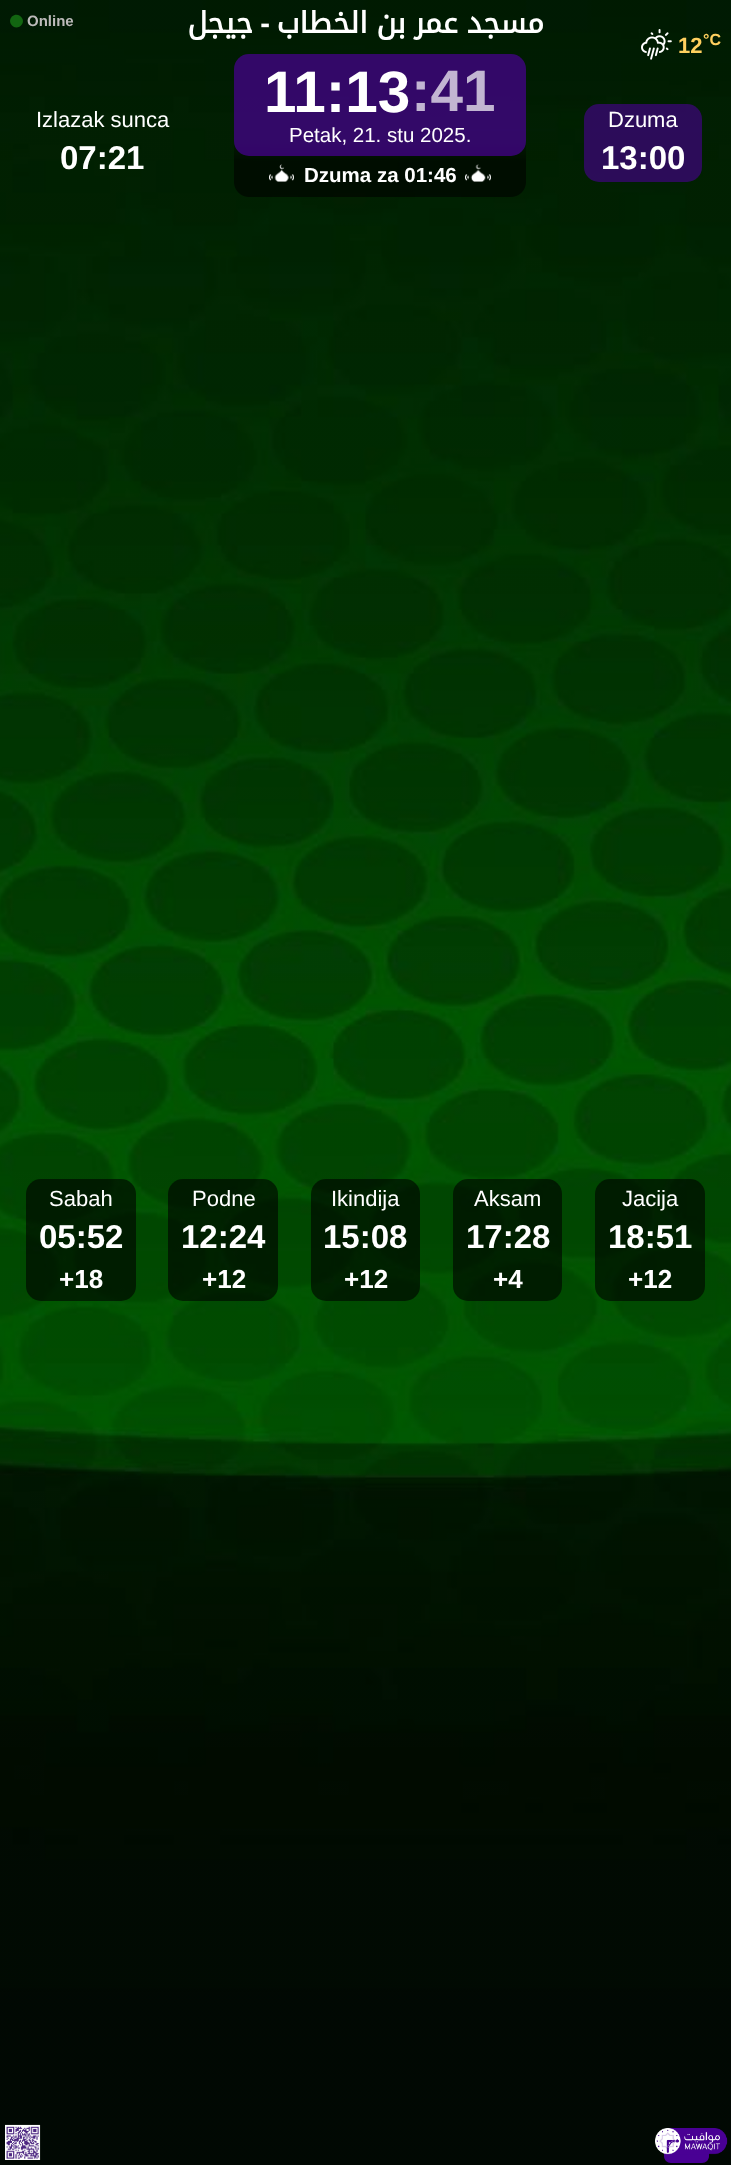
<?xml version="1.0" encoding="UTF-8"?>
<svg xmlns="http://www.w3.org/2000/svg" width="731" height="2165">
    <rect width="100%" height="100%" fill="#FFFFFF"/>
    <image x="0" y="0" width="731" height="2165" href="img_01.png"/>
    <path d="M 12 16.5 C 18 11 27 19.5 21 25.5 C 15 31.5 6 22.5 12 16.5 Z" fill="#126611"/>
    <text x="27" y="26" font-family="Liberation Sans" font-size="15" font-weight="700" fill="#BDBBBB">Online</text>
    <text x="253" y="33" font-family="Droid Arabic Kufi" font-size="29.25" font-weight="700" direction="rtl" fill="#FFFFFF">جيجل</text>
    <text x="270" y="33" font-family="Liberation Sans" font-size="29.25" font-weight="700" direction="rtl" fill="#FFFFFF">-</text>
    <text x="544" y="33" word-spacing="-1" font-family="Droid Arabic Kufi" font-size="29.25" font-weight="700" direction="rtl" fill="#FFFFFF">مسجد عمر بن الخطاب</text>
    <image x="641" y="29" width="31" height="31" href="img_02.png"/>
    <text x="678" y="53" font-family="Liberation Sans" font-size="22" font-weight="700" fill="#FFD05F">12</text>
    <text x="703" y="45" font-family="Liberation Sans" font-size="16" font-weight="700" fill="#FFD05F">°C</text>
    <text x="36" y="127" font-family="Liberation Sans" font-size="22" fill="#FFFFFF">Izlazak sunca</text>
    <text x="60" y="169" font-family="Liberation Sans" font-size="33" font-weight="700" fill="#FFFFFF">07:21</text>
    <rect x="234" y="54" width="292" height="102" rx="15" fill="#490094" fill-opacity="0.7"/>
    <text x="264" y="112" font-family="Liberation Sans" font-size="58.5" font-weight="700" fill="#FFFFFF">11:13</text>
    <text x="411" y="111" font-family="Liberation Sans" font-size="58.5" font-weight="700" fill="#C2B5D2">:41</text>
    <text x="289" y="142" font-family="Liberation Sans" font-size="20.5" fill="#FFFFFF">Petak, 21. stu 2025.</text>
    <image x="269" y="164" width="25" height="18" href="img_03.png"/>
    <text x="304" y="182" font-family="Liberation Sans" font-size="20.5" font-weight="700" fill="#FFFFFF">Dzuma za 01:46</text>
    <image x="465" y="164" width="26" height="18" href="img_04.png"/>
    <rect x="584" y="104" width="118" height="78" rx="15" fill="#490094" fill-opacity="0.6"/>
    <text x="608" y="127" font-family="Liberation Sans" font-size="22" fill="#FFFFFF">Dzuma</text>
    <text x="601" y="169" font-family="Liberation Sans" font-size="33" font-weight="700" fill="#FFFFFF">13:00</text>
    <rect x="26" y="1179" width="110" height="122" rx="15" fill="#000000" fill-opacity="0.6"/>
    <text x="49" y="1206" font-family="Liberation Sans" font-size="22" fill="#FFFFFF">Sabah</text>
    <text x="39" y="1248" font-family="Liberation Sans" font-size="33" font-weight="700" fill="#FFFFFF">05:52</text>
    <text x="59" y="1288" font-family="Liberation Sans" font-size="26" font-weight="700" fill="#FFFFFF">+18</text>
    <rect x="168" y="1179" width="110" height="122" rx="15" fill="#000000" fill-opacity="0.6"/>
    <text x="192" y="1206" font-family="Liberation Sans" font-size="22" fill="#FFFFFF">Podne</text>
    <text x="181" y="1248" font-family="Liberation Sans" font-size="33" font-weight="700" fill="#FFFFFF">12:24</text>
    <text x="202" y="1288" font-family="Liberation Sans" font-size="26" font-weight="700" fill="#FFFFFF">+12</text>
    <rect x="311" y="1179" width="109" height="122" rx="15" fill="#000000" fill-opacity="0.6"/>
    <text x="331" y="1206" font-family="Liberation Sans" font-size="22" fill="#FFFFFF">Ikindija</text>
    <text x="323" y="1248" font-family="Liberation Sans" font-size="33" font-weight="700" fill="#FFFFFF">15:08</text>
    <text x="344" y="1288" font-family="Liberation Sans" font-size="26" font-weight="700" fill="#FFFFFF">+12</text>
    <rect x="453" y="1179" width="109" height="122" rx="15" fill="#000000" fill-opacity="0.6"/>
    <text x="474" y="1206" font-family="Liberation Sans" font-size="22" fill="#FFFFFF">Aksam</text>
    <text x="466" y="1248" font-family="Liberation Sans" font-size="33" font-weight="700" fill="#FFFFFF">17:28</text>
    <text x="493" y="1288" font-family="Liberation Sans" font-size="26" font-weight="700" fill="#FFFFFF">+4</text>
    <rect x="595" y="1179" width="110" height="122" rx="15" fill="#000000" fill-opacity="0.6"/>
    <text x="622" y="1206" font-family="Liberation Sans" font-size="22" fill="#FFFFFF">Jacija</text>
    <text x="608" y="1248" font-family="Liberation Sans" font-size="33" font-weight="700" fill="#FFFFFF">18:51</text>
    <text x="628" y="1288" font-family="Liberation Sans" font-size="26" font-weight="700" fill="#FFFFFF">+12</text>
    <image x="5" y="2124" width="36" height="36" href="img_05.png"/>
    <path d="M 664 2152 H 709 V 2156 C 709 2160 706 2163 702 2163 H 671 C 667 2163 664 2160 664 2156 Z" fill="#490094"/>
    <image x="655" y="2128" width="73" height="27" href="img_06.png"/>
</svg>
